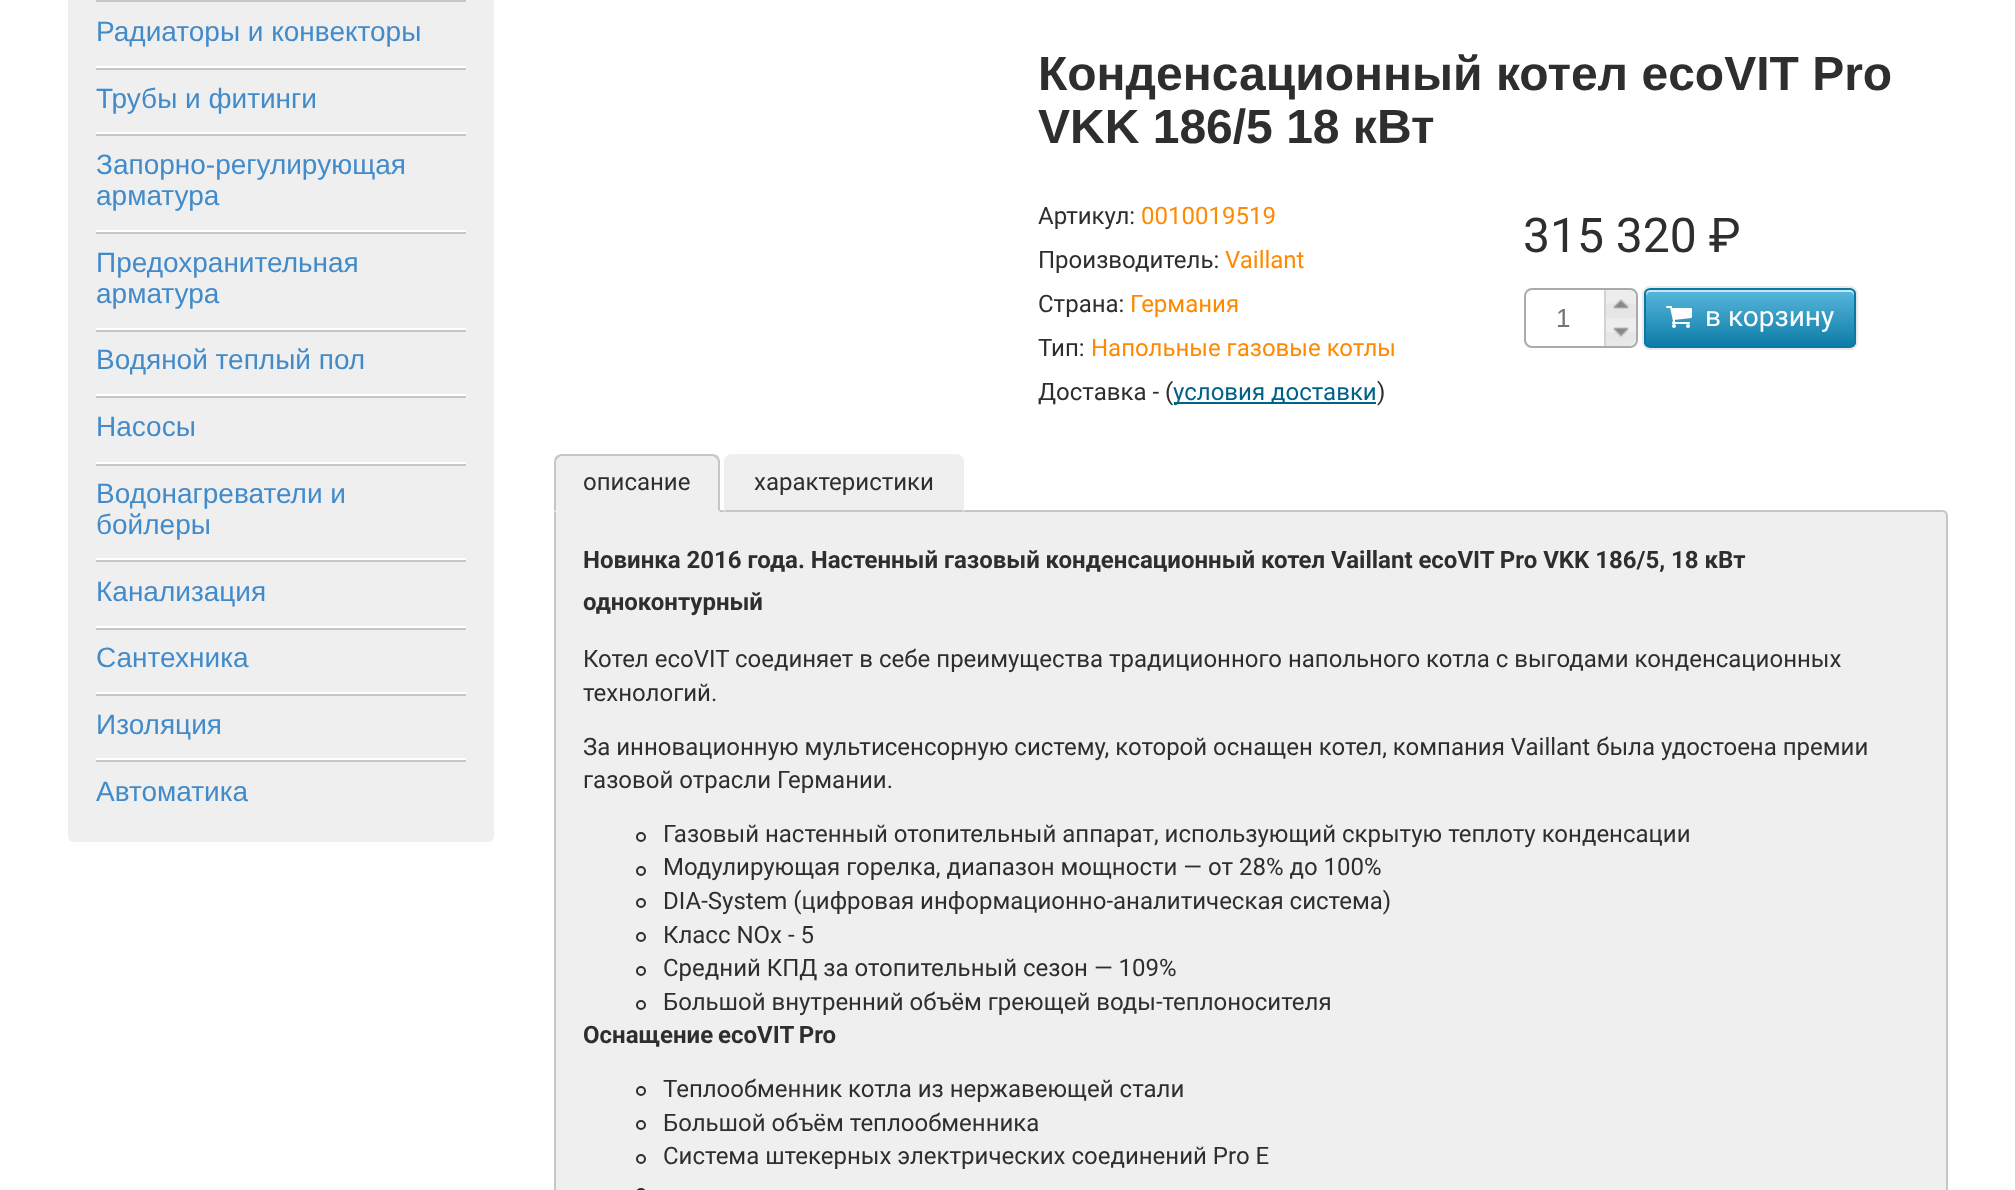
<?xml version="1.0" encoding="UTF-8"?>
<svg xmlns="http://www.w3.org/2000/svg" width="2015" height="1190">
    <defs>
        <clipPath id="clip1"><rect x="1644" y="288" width="212" height="60" rx="6"/></clipPath>
        <linearGradient id="g1" gradientUnits="userSpaceOnUse" x1="1750" y1="290" x2="1750" y2="346"><stop offset="0" stop-color="#59B7DC"/><stop offset="1" stop-color="#0D7CA8"/></linearGradient>
    </defs>
    <rect width="100%" height="100%" fill="#FFFFFF"/>
    <rect x="68" y="-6" width="426" height="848" rx="6" fill="#EFEFEF"/>
    <rect x="96" y="0" width="370" height="2" fill="#C7C5C5"/>
    <text x="96" y="41" font-family="Liberation Sans" font-size="28" fill="#428BCA">Радиаторы и конвекторы</text>
    <rect x="96" y="66" width="370" height="2" fill="#FFFFFF"/>
    <rect x="96" y="68" width="370" height="2" fill="#C7C5C5"/>
    <text x="96" y="108" font-family="Liberation Sans" font-size="28" fill="#428BCA">Трубы и фитинги</text>
    <rect x="96" y="132" width="370" height="2" fill="#FFFFFF"/>
    <rect x="96" y="134" width="370" height="2" fill="#C7C5C5"/>
    <text font-family="Liberation Sans" font-size="28" fill="#428BCA">
        <tspan x="96" y="174">Запорно-регулирующая</tspan>
        <tspan x="96" y="205">арматура</tspan>
    </text>
    <rect x="96" y="230" width="370" height="2" fill="#FFFFFF"/>
    <rect x="96" y="232" width="370" height="2" fill="#C7C5C5"/>
    <text font-family="Liberation Sans" font-size="28" fill="#428BCA">
        <tspan x="96" y="272">Предохранительная</tspan>
        <tspan x="96" y="303">арматура</tspan>
    </text>
    <rect x="96" y="328" width="370" height="2" fill="#FFFFFF"/>
    <rect x="96" y="330" width="370" height="2" fill="#C7C5C5"/>
    <text x="96" y="369" font-family="Liberation Sans" font-size="28" fill="#428BCA">Водяной теплый пол</text>
    <rect x="96" y="394" width="370" height="2" fill="#FFFFFF"/>
    <rect x="96" y="396" width="370" height="2" fill="#C7C5C5"/>
    <text x="96" y="436" font-family="Liberation Sans" font-size="28" fill="#428BCA">Насосы</text>
    <rect x="96" y="462" width="370" height="2" fill="#FFFFFF"/>
    <rect x="96" y="464" width="370" height="2" fill="#C7C5C5"/>
    <text font-family="Liberation Sans" font-size="28" fill="#428BCA">
        <tspan x="96" y="503">Водонагреватели и</tspan>
        <tspan x="96" y="534">бойлеры</tspan>
    </text>
    <rect x="96" y="558" width="370" height="2" fill="#FFFFFF"/>
    <rect x="96" y="560" width="370" height="2" fill="#C7C5C5"/>
    <text x="96" y="601" font-family="Liberation Sans" font-size="28" fill="#428BCA">Канализация</text>
    <rect x="96" y="626" width="370" height="2" fill="#FFFFFF"/>
    <rect x="96" y="628" width="370" height="2" fill="#C7C5C5"/>
    <text x="96" y="667" font-family="Liberation Sans" font-size="28" fill="#428BCA">Сантехника</text>
    <rect x="96" y="692" width="370" height="2" fill="#FFFFFF"/>
    <rect x="96" y="694" width="370" height="2" fill="#C7C5C5"/>
    <text x="96" y="734" font-family="Liberation Sans" font-size="28" fill="#428BCA">Изоляция</text>
    <rect x="96" y="758" width="370" height="2" fill="#FFFFFF"/>
    <rect x="96" y="760" width="370" height="2" fill="#C7C5C5"/>
    <text x="96" y="801" font-family="Liberation Sans" font-size="28" fill="#428BCA">Автоматика</text>
    <text font-family="Liberation Sans" font-size="48" font-weight="700" fill="#2E2E2E">
        <tspan x="1038" y="90">Конденсационный котел ecoVIT Pro</tspan>
        <tspan x="1038" y="143">VKK 186/5 18 кВт</tspan>
    </text>
    <text x="1038" y="224" font-family="Roboto" font-size="24" fill="#2E2E2E">Артикул:</text>
    <text x="1141" y="224" font-family="Roboto" font-size="24" fill="#FF8900">0010019519</text>
    <text x="1038" y="268" font-family="Roboto" font-size="24" fill="#2E2E2E">Производитель:</text>
    <text x="1225" y="268" font-family="Roboto" font-size="24" fill="#FF8900">Vaillant</text>
    <text x="1038" y="312" font-family="Roboto" font-size="24" fill="#2E2E2E">Страна:</text>
    <text x="1130" y="312" font-family="Roboto" font-size="24" fill="#FF8900">Германия</text>
    <text x="1038" y="356" font-family="Roboto" font-size="24" fill="#2E2E2E">Тип:</text>
    <text x="1091" y="356" font-family="Roboto" font-size="24" fill="#FF8900">Напольные газовые котлы</text>
    <text x="1038" y="400" font-family="Roboto" font-size="24" fill="#2E2E2E">Доставка - (</text>
    <rect x="1174" y="402" width="202" height="2" fill="#016288"/>
    <text x="1173" y="400" font-family="Roboto" font-size="24" fill="#016288">условия доставки</text>
    <text x="1377" y="400" font-family="Roboto" font-size="24" fill="#2E2E2E">)</text>
    <text x="1523" y="252" font-family="Roboto" font-size="48" fill="#2E2E2E">315 320 ₽</text>
    <rect x="1525" y="289" width="112" height="58" rx="7" fill="none" stroke="#AAAAAA" stroke-width="2"/>
    <text x="1556" y="327" font-family="Liberation Sans" font-size="26" fill="#757575">1</text>
    <path d="M 1604 290 H 1628 C 1632.5 290 1636 293.5 1636 298 V 318 H 1604 Z" fill="#E6E6E6"/>
    <image x="1606" y="290" width="30" height="14" href="img_01.png"/>
    <rect x="1604" y="290" width="2" height="28" fill="#D3D3D3"/>
    <image x="1613" y="299" width="16" height="10" href="img_02.png"/>
    <path d="M 1604 318 H 1636 V 338 C 1636 342.5 1632.5 346 1628 346 H 1604 Z" fill="#E6E6E6"/>
    <image x="1606" y="318" width="30" height="27" href="img_03.png"/>
    <rect x="1604" y="318" width="2" height="28" fill="#D3D3D3"/>
    <image x="1613" y="327" width="16" height="10" href="img_04.png"/>
    <rect x="1643" y="287" width="214" height="62" rx="7" fill="none" stroke="#EAEAEA" stroke-width="2"/>
    <g clip-path="url(#clip1)">
        <rect x="1644" y="290" width="212" height="56" fill="url(#g1)"/>
    </g>
    <path d="M 1650 292 H 1850 C 1852 292 1854 294 1854 296 C 1854 293 1854 291 1851 290 H 1650 C 1646 290 1646 293 1646 296 C 1646 294 1648 292 1650 292 Z" fill="#C7E7F3"/>
    <rect x="1645" y="289" width="210" height="58" rx="5" fill="none" stroke="#0A78A3" stroke-width="2"/>
    <image x="1666" y="306" width="26" height="22" href="img_05.png"/>
    <text x="1705" y="326" font-family="Roboto" font-size="28" fill="#FFFFFF">в корзину</text>
    <path d="M 555 511 H 1942 C 1945 511 1947 513 1947 516 V 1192 C 1947 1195 1945 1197 1942 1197 H 560 C 557 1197 555 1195 555 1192 Z" fill="#EFEFEF" stroke="#C7C5C5" stroke-width="2"/>
    <path d="M 562 454 H 712 C 716.5 454 720 457.5 720 462 V 512 H 554 V 462 C 554 457.5 557.5 454 562 454 Z" fill="#EFEFEF"/>
    <path d="M 562 454 C 560 454 558 455 556 456 L 558 458 L 561 456 H 713 L 716 458 L 718 456 C 716 455 714 454 712 454 Z" fill="#C7C5C5"/>
    <path d="M 720 512 V 462 C 720 460 719 458 718 456 L 716 458 C 717 459 718 460 718 462 V 510 Z" fill="#C7C5C5"/>
    <path d="M 720 512 L 718 510 H 556 L 554 512 Z" fill="#EFEFEF"/>
    <path d="M 554 512 L 556 510 V 462 C 556 460 557 459 558 458 L 556 456 C 555 458 554 460 554 462 Z" fill="#C7C5C5"/>
    <text x="583" y="490" font-family="Roboto" font-size="24" fill="#2E2E2E">описание</text>
    <path d="M 732 454 H 956 C 960.5 454 964 457.5 964 462 V 512 H 724 V 462 C 724 457.5 727.5 454 732 454 Z" fill="#EFEFEF"/>
    <path d="M 964 512 L 962 510 H 726 L 724 512 Z" fill="#C7C5C5"/>
    <text x="754" y="490" font-family="Roboto" font-size="24" fill="#2E2E2E">характеристики</text>
    <text font-family="Roboto" font-size="24" font-weight="700" fill="#2E2E2E">
        <tspan x="583" y="568" word-spacing="-0.1">Новинка 2016 года. Настенный газовый конденсационный котел Vaillant ecoVIT Pro VKK 186/5, 18 кВт</tspan>
        <tspan x="583" y="610">одноконтурный</tspan>
    </text>
    <text font-family="Roboto" font-size="24" fill="#2E2E2E">
        <tspan x="583" y="667">Котел ecoVIT соединяет в себе преимущества традиционного напольного котла с выгодами конденсационных</tspan>
        <tspan x="583" y="701">технологий.</tspan>
    </text>
    <text font-family="Roboto" font-size="24" fill="#2E2E2E">
        <tspan x="583" y="755">За инновационную мультисенсорную систему, которой оснащен котел, компания Vaillant была удостоена премии</tspan>
        <tspan x="583" y="788">газовой отрасли Германии.</tspan>
    </text>
    <circle cx="641" cy="837" r="4" fill="none" stroke="#2E2E2E" stroke-width="2"/>
    <text x="663" y="842" font-family="Roboto" font-size="24" fill="#2E2E2E">Газовый настенный отопительный аппарат, использующий скрытую теплоту конденсации</text>
    <circle cx="641" cy="871" r="4" fill="none" stroke="#2E2E2E" stroke-width="2"/>
    <text x="663" y="875" font-family="Roboto" font-size="24" fill="#2E2E2E">Модулирующая горелка, диапазон мощности — от 28% до 100%</text>
    <circle cx="641" cy="903" r="4" fill="none" stroke="#2E2E2E" stroke-width="2"/>
    <text x="663" y="909" font-family="Roboto" font-size="24" fill="#2E2E2E">DIA-System (цифровая информационно-аналитическая система)</text>
    <circle cx="641" cy="937" r="4" fill="none" stroke="#2E2E2E" stroke-width="2"/>
    <text x="663" y="943" font-family="Roboto" font-size="24" fill="#2E2E2E">Класс NOx - 5</text>
    <circle cx="641" cy="971" r="4" fill="none" stroke="#2E2E2E" stroke-width="2"/>
    <text x="663" y="976" font-family="Roboto" font-size="24" fill="#2E2E2E">Средний КПД за отопительный сезон — 109%</text>
    <circle cx="641" cy="1005" r="4" fill="none" stroke="#2E2E2E" stroke-width="2"/>
    <text x="663" y="1010" font-family="Roboto" font-size="24" fill="#2E2E2E">Большой внутренний объём греющей воды-теплоносителя</text>
    <text x="583" y="1043" word-spacing="-1" font-family="Roboto" font-size="24" font-weight="700" fill="#2E2E2E">Оснащение ecoVIT Pro</text>
    <circle cx="641" cy="1091" r="4" fill="none" stroke="#2E2E2E" stroke-width="2"/>
    <text x="663" y="1097" font-family="Roboto" font-size="24" fill="#2E2E2E">Теплообменник котла из нержавеющей стали</text>
    <circle cx="641" cy="1125" r="4" fill="none" stroke="#2E2E2E" stroke-width="2"/>
    <text x="663" y="1131" font-family="Roboto" font-size="24" fill="#2E2E2E">Большой объём теплообменника</text>
    <circle cx="641" cy="1159" r="4" fill="none" stroke="#2E2E2E" stroke-width="2"/>
    <text x="663" y="1164" font-family="Roboto" font-size="24" fill="#2E2E2E">Система штекерных электрических соединений Pro E</text>
    <rect x="637" y="1189" width="8" height="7" rx="4" fill="none" stroke="#2E2E2E" stroke-width="2"/>
</svg>
